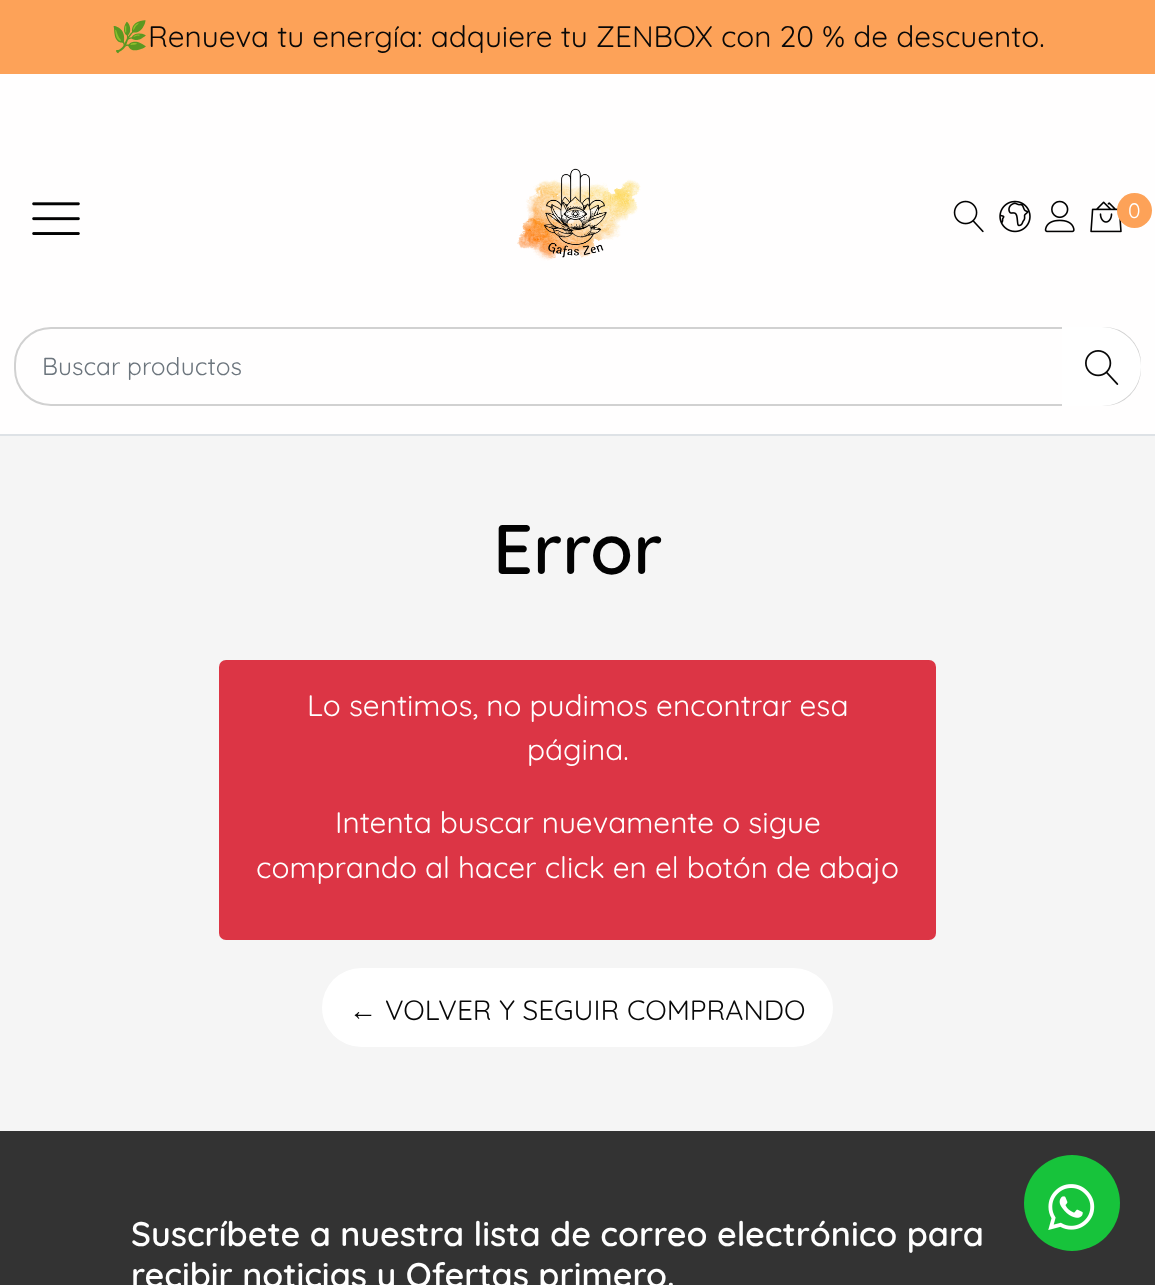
<?xml version="1.0" encoding="UTF-8"?>
<svg xmlns="http://www.w3.org/2000/svg" width="1155" height="1285">
    <rect width="100%" height="100%" fill="#FFFEFE"/>
    <rect x="0" y="434" width="1155" height="2" fill="#DEE2E6"/>
    <rect x="0" y="0" width="1155" height="74" fill="#FDA258"/>
    <text x="111" y="47" font-family="Noto Color Emoji" font-size="29.75" fill="#080808">🌿</text>
    <text x="148" y="47" font-family="Quicksand" font-size="29.75" fill="#080808">Renueva tu energía: adquiere tu ZENBOX con 20 % de descuento.</text>
    <image x="32" y="202" width="48" height="33" href="img_01.png"/>
    <image x="517" y="168" width="124" height="93" href="img_02.png"/>
    <image x="953" y="200" width="31" height="33" href="img_03.png"/>
    <image x="999" y="200" width="32" height="33" href="img_04.png"/>
    <image x="1044" y="200" width="31" height="33" href="img_05.png"/>
    <image x="1090" y="201" width="32" height="32" href="img_06.png"/>
    <circle cx="1134.5" cy="210.5" r="17.5" fill="#FDA258"/>
    <text x="1128" y="218" font-family="Quicksand" font-size="21" fill="#FFFFFF">0</text>
    <rect x="15" y="328" width="1125" height="77" rx="36" fill="none" stroke="#D1D1D1" stroke-width="2"/>
    <text x="42" y="375" font-family="Quicksand" font-size="24.5" fill="#6C757D">Buscar productos</text>
    <path d="M 1062 327 H 1101.5 C 1123.5 327 1141 344.5 1141 366.5 C 1141 388.5 1123.5 406 1101.5 406 H 1062 Z" fill="#FFFFFF"/>
    <image x="1085" y="350" width="34" height="35" href="img_07.png"/>
    <rect x="0" y="436" width="1155" height="695" fill="#F5F5F5"/>
    <text x="493" y="574" font-family="Quicksand" font-size="70" font-weight="600" fill="#020202">Error</text>
    <rect x="219" y="660" width="717" height="280" rx="7" fill="#DC3545"/>
    <text x="307" y="716" font-family="Quicksand" font-size="29.75" fill="#FFFFFF">Lo sentimos, no pudimos encontrar esa</text>
    <text x="527" y="760" font-family="Quicksand" font-size="29.75" fill="#FFFFFF">página.</text>
    <text x="335" y="833" font-family="Quicksand" font-size="29.75" fill="#FFFFFF">Intenta buscar nuevamente o sigue</text>
    <text x="256" y="878" font-family="Quicksand" font-size="29.75" fill="#FFFFFF">comprando al hacer click en el botón de abajo</text>
    <rect x="322" y="968" width="511" height="79" rx="39.5" fill="#FFFFFF"/>
    <text x="349" y="1020" font-family="Liberation Serif" font-size="28" fill="#080808">←</text>
    <text x="385" y="1020" font-family="Quicksand" font-size="28" fill="#080808">VOLVER Y SEGUIR COMPRANDO</text>
    <rect x="0" y="1131" width="1155" height="154" fill="#333333"/>
    <text font-family="Quicksand" font-size="34" font-weight="600" fill="#FFFFFF">
        <tspan x="131" y="1246">Suscríbete a nuestra lista de correo electrónico para</tspan>
        <tspan x="131" y="1287">recibir noticias y Ofertas primero.</tspan>
    </text>
    <circle cx="1072" cy="1203" r="48" fill="#17C33B"/>
    <image x="1048" y="1184" width="47" height="46" href="img_08.png"/>
</svg>
